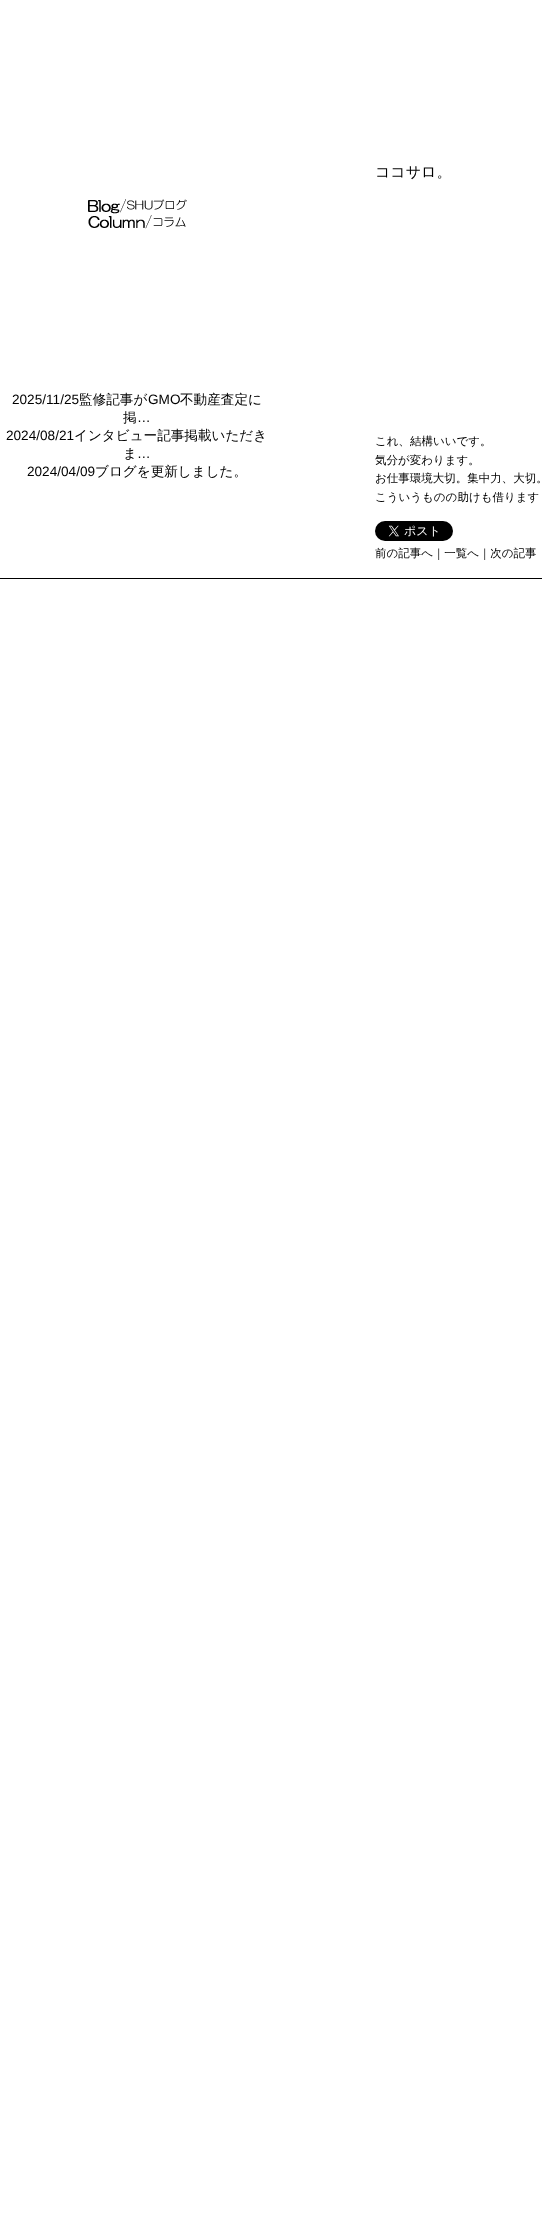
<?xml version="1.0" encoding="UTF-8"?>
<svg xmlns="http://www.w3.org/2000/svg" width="542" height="2234">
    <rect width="100%" height="100%" fill="#FFFFFF"/>
    <image x="88" y="199" width="99" height="15" href="img_01.png"/>
    <image x="88" y="215" width="98" height="14" href="img_02.png"/>
    <text x="12" y="404" font-family="Liberation Sans" font-size="13.6" fill="#000000">2025/11/25</text>
    <text x="79" y="404" font-family="WenQuanYi Zen Hei" font-size="13.6" font-weight="500" fill="#000000">監修記事が</text>
    <text x="148" y="404" font-family="Liberation Sans" font-size="13.6" fill="#000000">GMO</text>
    <text x="180" y="404" font-family="WenQuanYi Zen Hei" font-size="13.6" font-weight="500" fill="#000000">不動産査定に</text>
    <text x="123" y="422" font-family="WenQuanYi Zen Hei" font-size="13.6" font-weight="500" fill="#000000">掲</text>
    <text x="137" y="422" font-family="Liberation Sans" font-size="13.6" fill="#000000">…</text>
    <text x="6" y="440" font-family="Liberation Sans" font-size="13.6" fill="#000000">2024/08/21</text>
    <text x="74" y="440" font-family="WenQuanYi Zen Hei" font-size="13.6" font-weight="500" fill="#000000">インタビュー記事掲載いただき</text>
    <text x="123" y="458" font-family="WenQuanYi Zen Hei" font-size="13.6" font-weight="500" fill="#000000">ま</text>
    <text x="137" y="458" font-family="Liberation Sans" font-size="13.6" fill="#000000">…</text>
    <text x="27" y="476" font-family="Liberation Sans" font-size="13.6" fill="#000000">2024/04/09</text>
    <text x="95" y="476" font-family="WenQuanYi Zen Hei" font-size="13.6" font-weight="500" fill="#000000">ブログを更新しました。</text>
    <text x="375" y="177" font-family="WenQuanYi Zen Hei" font-size="15" font-weight="500" fill="#000000">ココサロ。</text>
    <text font-family="WenQuanYi Zen Hei" font-size="11.5" font-weight="500" fill="#000000">
        <tspan x="375" y="445">これ、結構いいです。</tspan>
        <tspan x="375" y="464">気分が変わります。</tspan>
        <tspan x="375" y="482">お仕事環境大切。集中力、大切。</tspan>
        <tspan x="375" y="501">こういうものの助けも借ります</tspan>
    </text>
    <image x="375" y="521" width="78" height="20" href="img_03.png"/>
    <text x="375" y="557" font-family="WenQuanYi Zen Hei" font-size="11.5" font-weight="500" fill="#000000">前の記事へ｜一覧へ｜次の記事</text>
    <rect x="0" y="578" width="542" height="1" fill="#000000"/>
</svg>
